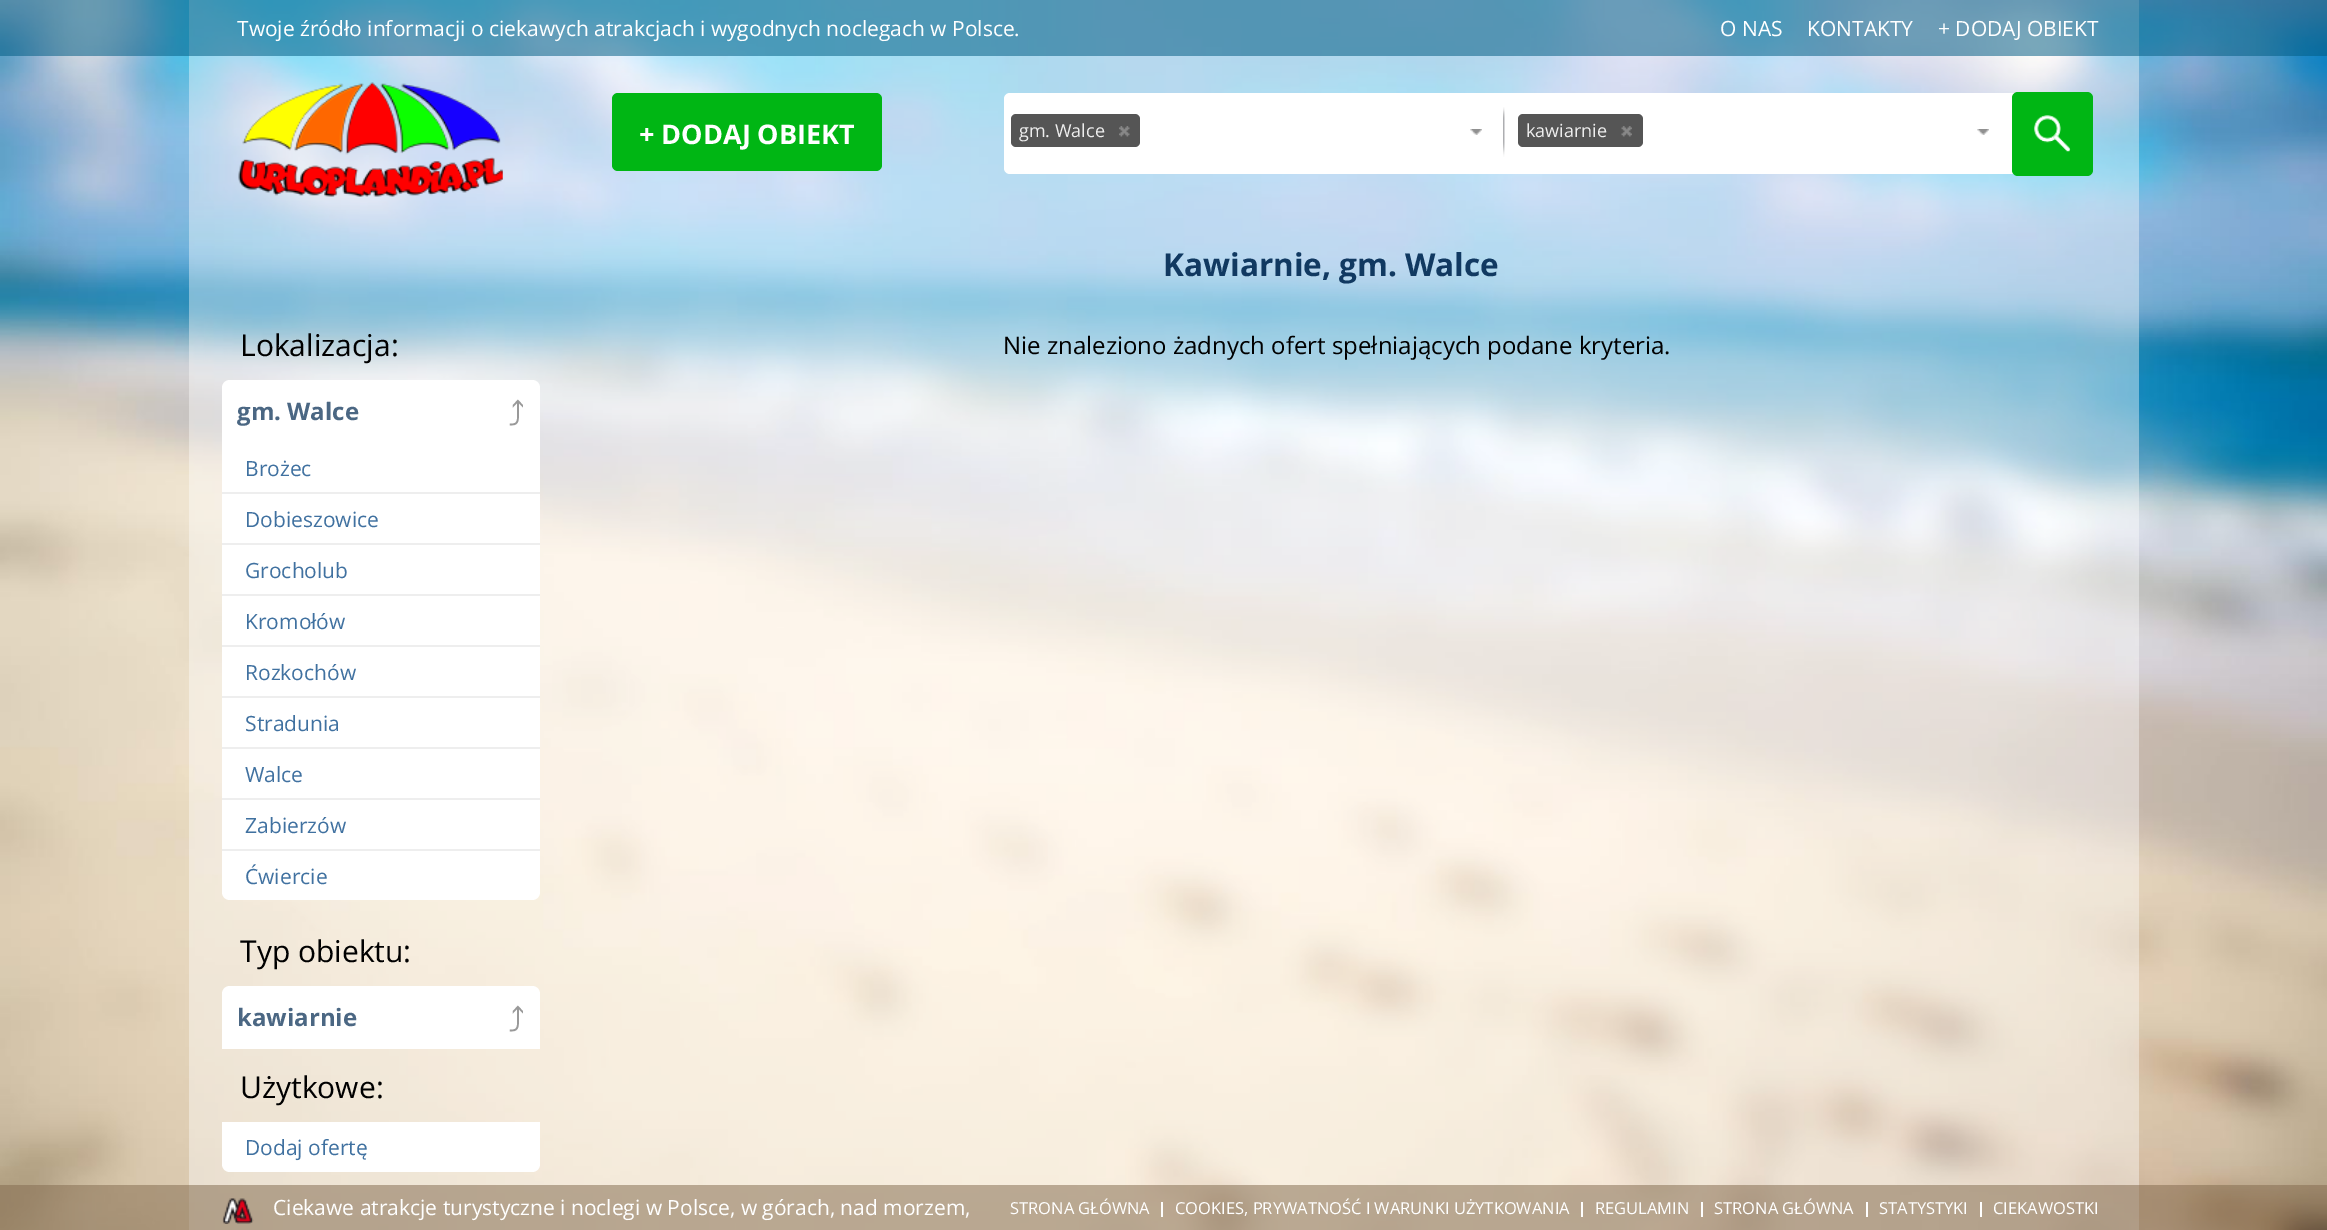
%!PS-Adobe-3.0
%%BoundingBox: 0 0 2327 1230
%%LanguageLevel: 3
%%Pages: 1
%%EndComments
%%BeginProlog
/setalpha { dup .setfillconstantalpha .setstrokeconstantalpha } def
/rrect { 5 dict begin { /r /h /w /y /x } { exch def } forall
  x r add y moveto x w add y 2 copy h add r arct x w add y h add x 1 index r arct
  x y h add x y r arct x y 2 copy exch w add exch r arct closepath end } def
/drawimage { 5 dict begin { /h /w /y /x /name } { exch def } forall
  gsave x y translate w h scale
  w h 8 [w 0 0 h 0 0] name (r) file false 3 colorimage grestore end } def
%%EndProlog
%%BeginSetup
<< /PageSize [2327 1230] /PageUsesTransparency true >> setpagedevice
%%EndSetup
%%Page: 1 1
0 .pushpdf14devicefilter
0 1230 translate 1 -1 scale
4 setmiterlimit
1 setgray
0 0 2327 1230 rectfill
(images/1.raw) 0 0 2327 1230 drawimage
0.4 setalpha
189 0 1950 1230 rectfill
0.53 setalpha
0 0.357 0.51 setrgbcolor
0 0 2327 56 rectfill
1 setalpha
(images/2.raw) 238 82 265 115 drawimage
0 0.714 0.078 setrgbcolor
612 93 270 78 6 rrect fill
1 setgray
1004 93 1087 81 6 rrect fill
0.333 setgray
1011 114 129 33 5 rrect fill
(images/3.raw) 1119 126 11 11 drawimage
(images/4.raw) 1470 129 12 6 drawimage
(images/5.raw) 1503 107 2 50 drawimage
1518 114 125 33 5 rrect fill
(images/6.raw) 1621 126 11 11 drawimage
(images/4.raw) 1977 129 12 6 drawimage
0 0.714 0.078 setrgbcolor
2012 92 81 84 6 rrect fill
(images/7.raw) 2034 115 37 37 drawimage
1 setgray
newpath 230 380 moveto 532 380 lineto 536.5 380 540 383.5 540 388 curveto 540 443 lineto 222 443 lineto 222 388 lineto 222 383.5 225.5 380 230 380 curveto closepath fill
222 443 318 49 rectfill
222 494 318 49 rectfill
0.933 setgray
222 492 318 2 rectfill
1 setgray
222 545 318 49 rectfill
0.933 setgray
222 543 318 2 rectfill
1 setgray
222 596 318 49 rectfill
0.933 setgray
222 594 318 2 rectfill
1 setgray
222 647 318 49 rectfill
0.933 setgray
222 645 318 2 rectfill
1 setgray
222 698 318 49 rectfill
0.933 setgray
222 696 318 2 rectfill
1 setgray
222 749 318 49 rectfill
0.933 setgray
222 747 318 2 rectfill
1 setgray
222 800 318 49 rectfill
0.933 setgray
222 798 318 2 rectfill
1 setgray
newpath 222 849 moveto 540 849 lineto 540 892 lineto 540 896.5 536.5 900 532 900 curveto 230 900 lineto 225.5 900 222 896.5 222 892 curveto closepath fill
0.933 setgray
222 849 318 2 rectfill
1 setgray
newpath 230 986 moveto 532 986 lineto 536.5 986 540 989.5 540 994 curveto 540 1049 lineto 222 1049 lineto 222 994 lineto 222 989.5 225.5 986 230 986 curveto closepath fill
newpath 222 1122 moveto 540 1122 lineto 540 1164 lineto 540 1168.5 536.5 1172 532 1172 curveto 230 1172 lineto 225.5 1172 222 1168.5 222 1164 curveto closepath fill
0.53 setalpha
0.514 0.42 0.31 setrgbcolor
0 1185 2327 45 rectfill
1 setalpha
(images/8.raw) 222 1198 32 26 drawimage
1 setgray
1161 1202 2 15 rectfill
1581 1202 2 15 rectfill
1701 1202 2 15 rectfill
1866 1202 2 15 rectfill
1980 1202 2 15 rectfill
/OpenSans-Regular [21 0 0 -21 0 0] selectfont
237 36 moveto (Twoje źródło informacji o ciekawych atrakcjach i wygodnych noclegach w Polsce.) show
1720 36 moveto (O NAS) show
1807 36 moveto (KONTAKTY) show
1938 36 moveto (+ DODAJ OBIEKT) show
/OpenSans-Bold [27 0 0 -27 0 0] selectfont
639 144 moveto (+ DODAJ OBIEKT) show
/OpenSans-Regular [18 0 0 -18 0 0] selectfont
0.933 setgray
1019 137 moveto (gm. Walce) show
1526 137 moveto (kawiarnie) show
/OpenSans-Bold [31.5 0 0 -31.5 0 0] selectfont
0.067 0.224 0.38 setrgbcolor
1163 276 moveto (Kawiarnie, gm. Walce) show
/OpenSans-Regular [30 0 0 -30 0 0] selectfont
0 setgray
240 356 moveto (Lokalizacja:) show
/OpenSans-Bold [24 0 0 -24 0 0] selectfont
0.294 0.404 0.514 setrgbcolor
237 420 moveto (gm. Walce) show
/IPAGothic-Regular [34 0 0 -34 0 0] selectfont
0.6 setgray
508 426 moveto (⤴) show
/OpenSans-Regular [21 0 0 -21 0 0] selectfont
0.251 0.443 0.627 setrgbcolor
245 476 moveto (Brożec) show
245 527 moveto (Dobieszowice) show
245 578 moveto (Grocholub) show
245 629 moveto (Kromołów) show
245 680 moveto (Rozkochów) show
245 731 moveto (Stradunia) show
245 782 moveto (Walce) show
245 833 moveto (Zabierzów) show
245 884 moveto (Ćwiercie) show
/OpenSans-Regular [30 0 0 -30 0 0] selectfont
0 setgray
240 962 moveto (Typ obiektu:) show
/OpenSans-Bold [24 0 0 -24 0 0] selectfont
0.294 0.404 0.514 setrgbcolor
237 1026 moveto (kawiarnie) show
/IPAGothic-Regular [34 0 0 -34 0 0] selectfont
0.6 setgray
508 1032 moveto (⤴) show
/OpenSans-Regular [30 0 0 -30 0 0] selectfont
0 setgray
240 1098 moveto (Użytkowe:) show
/OpenSans-Regular [21 0 0 -21 0 0] selectfont
0.251 0.443 0.627 setrgbcolor
245 1155 moveto (Dodaj ofertę) show
/OpenSans-Regular [24 0 0 -24 0 0] selectfont
0 setgray
1003 354 moveto (Nie znaleziono żadnych ofert spełniających podane kryteria.) show
/OpenSans-Regular [21 0 0 -21 0 0] selectfont
1 setgray
273 1215 moveto (Ciekawe atrakcje turystyczne i noclegi w Polsce, w górach, nad morzem,) show
/OpenSans-Regular [16.5 0 0 -16.5 0 0] selectfont
1010 1214 moveto (STRONA GŁÓWNA) show
1175 1214 moveto (COOKIES, PRYWATNOŚĆ I WARUNKI UŻYTKOWANIA) show
1595 1214 moveto (REGULAMIN) show
1714 1214 moveto (STRONA GŁÓWNA) show
1879 1214 moveto (STATYSTYKI) show
1993 1214 moveto (CIEKAWOSTKI) show
.poppdf14devicefilter showpage
%%EOF
